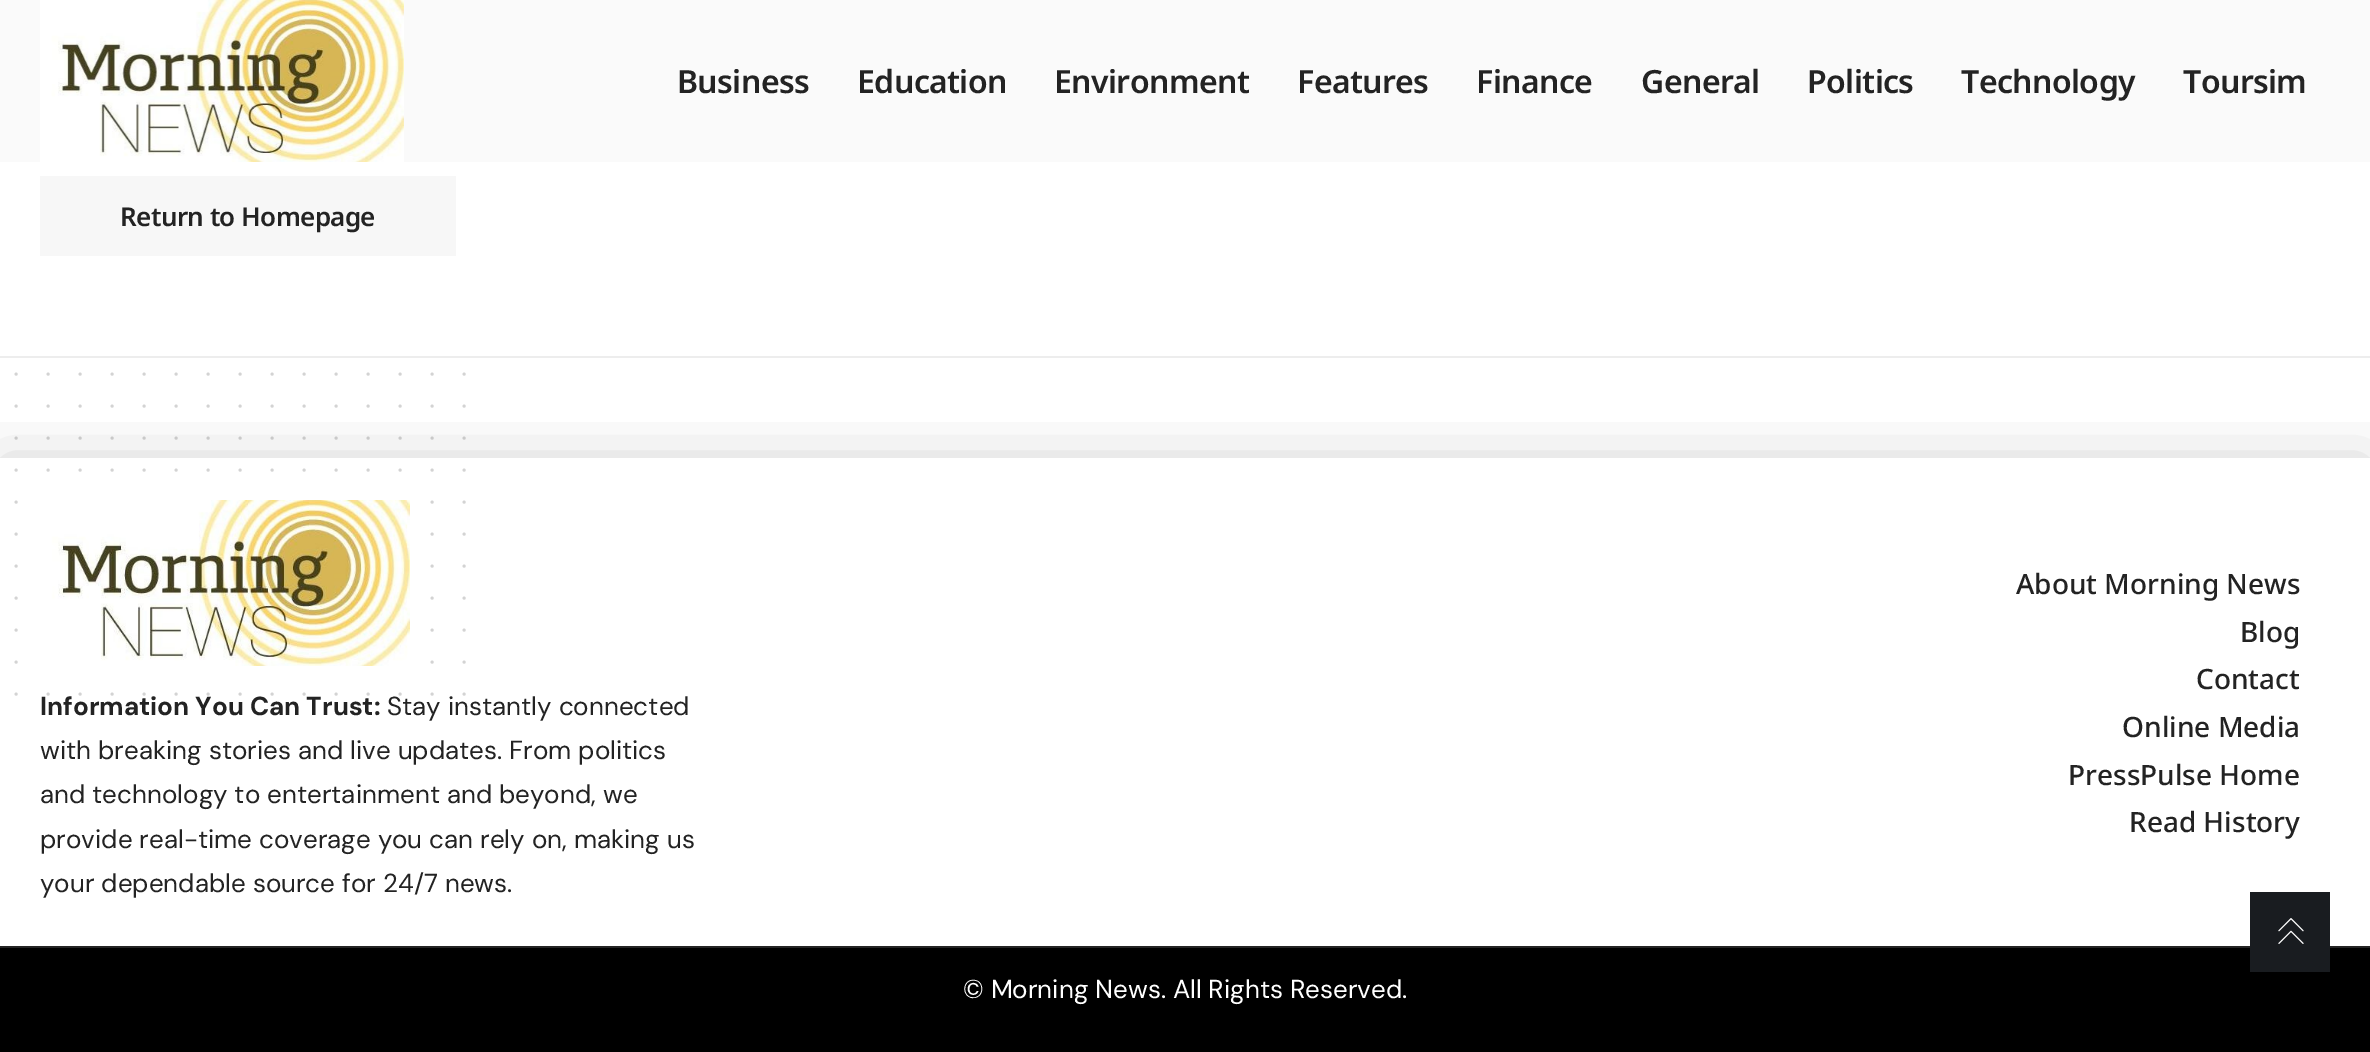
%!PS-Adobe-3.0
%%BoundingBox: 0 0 2370 1052
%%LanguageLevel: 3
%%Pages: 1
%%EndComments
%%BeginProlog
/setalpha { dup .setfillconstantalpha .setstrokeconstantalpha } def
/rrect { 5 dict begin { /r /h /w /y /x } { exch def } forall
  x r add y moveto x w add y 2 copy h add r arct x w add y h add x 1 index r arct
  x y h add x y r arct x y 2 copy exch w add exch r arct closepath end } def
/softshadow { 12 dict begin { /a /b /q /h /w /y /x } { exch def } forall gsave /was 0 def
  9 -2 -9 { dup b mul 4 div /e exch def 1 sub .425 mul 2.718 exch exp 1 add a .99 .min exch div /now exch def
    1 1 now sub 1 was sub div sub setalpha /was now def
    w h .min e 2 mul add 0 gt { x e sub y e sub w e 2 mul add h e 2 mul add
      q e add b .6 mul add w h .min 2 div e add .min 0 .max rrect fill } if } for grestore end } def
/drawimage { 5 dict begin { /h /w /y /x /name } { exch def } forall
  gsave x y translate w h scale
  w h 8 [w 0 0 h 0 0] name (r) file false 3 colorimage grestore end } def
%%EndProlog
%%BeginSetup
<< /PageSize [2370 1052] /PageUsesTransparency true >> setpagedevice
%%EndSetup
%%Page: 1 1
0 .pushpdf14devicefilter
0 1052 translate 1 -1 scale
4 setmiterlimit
1 setgray
0 0 2370 1052 rectfill
0.98 setgray
0 0 2370 162 rectfill
(images/1.raw) 40 0 364 162 drawimage
0.969 setgray
40 176 416 80 rectfill
0.929 setgray
0 356 2370 2 rectfill
0.827 setgray
3 setlinewidth
1 setlinecap
[0 32] 0 setdash
newpath 16 374 moveto 464.4 374 lineto stroke
newpath 16 406 moveto 464.4 406 lineto stroke
newpath 16 438 moveto 464.4 438 lineto stroke
newpath 16 470 moveto 464.4 470 lineto stroke
newpath 16 502 moveto 464.4 502 lineto stroke
newpath 16 534 moveto 464.4 534 lineto stroke
newpath 16 566 moveto 464.4 566 lineto stroke
newpath 16 598 moveto 464.4 598 lineto stroke
newpath 16 630 moveto 464.4 630 lineto stroke
newpath 16 662 moveto 464.4 662 lineto stroke
newpath 16 694 moveto 464.4 694 lineto stroke
gsave
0 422 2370 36 rectclip
0 setgray
0 458 2370 488 0 31 0.16 softshadow
grestore
(images/2.raw) 46 500 364 166 drawimage
0 setgray
0 948 2370 104 rectfill
0.141 setgray
0 946 2370 2 rectfill
0.098 0.11 0.125 setrgbcolor
2250 892 80 80 rectfill
(images/3.raw) 2278 918 26 26 drawimage
/NotoSans-SemiBold [32 0 0 -32 0 0] selectfont
0.137 setgray
677 93 moveto -0.6 0 (Business) ashow
857 93 moveto -0.6 0 (Education) ashow
1054 93 moveto -0.6 0 (Environment) ashow
1297 93 moveto -0.6 0 (Features) ashow
1476 93 moveto -0.6 0 (Finance) ashow
1641 93 moveto -0.6 0 (General) ashow
1807 93 moveto -0.6 0 (Politics) ashow
1961 93 moveto -0.6 0 (Technology) ashow
2183 93 moveto -0.6 0 (Toursim) ashow
/NotoSans-SemiBold [26 0 0 -26 0 0] selectfont
120 226 moveto -0.6 0 (Return to Homepage) ashow
/DMSans-Bold [26 0 0 -26 0 0] selectfont
40 715 moveto (Information You Can Trust:) show
/DMSans-Regular [26 0 0 -26 0 0] selectfont
387 715 moveto (Stay instantly connected) show
40 759 moveto (with breaking stories and live updates. From politics) show
40 803 moveto (and technology to entertainment and beyond, we) show
40 848 moveto (provide real-time coverage you can rely on, making us) show
40 892 moveto (your dependable source for 24/7 news.) show
/NotoSans-Medium [28 0 0 -28 0 0] selectfont
2016 594 moveto (About Morning News) show
2240 642 moveto (Blog) show
2196 689 moveto (Contact) show
2122 737 moveto (Online Media) show
2068 785 moveto (PressPulse Home) show
2129 832 moveto (Read History) show
/DMSans-Regular [26 0 0 -26 0 0] selectfont
1 setgray
963 998 moveto (© Morning News. All Rights Reserved.) show
.poppdf14devicefilter showpage
%%EOF
